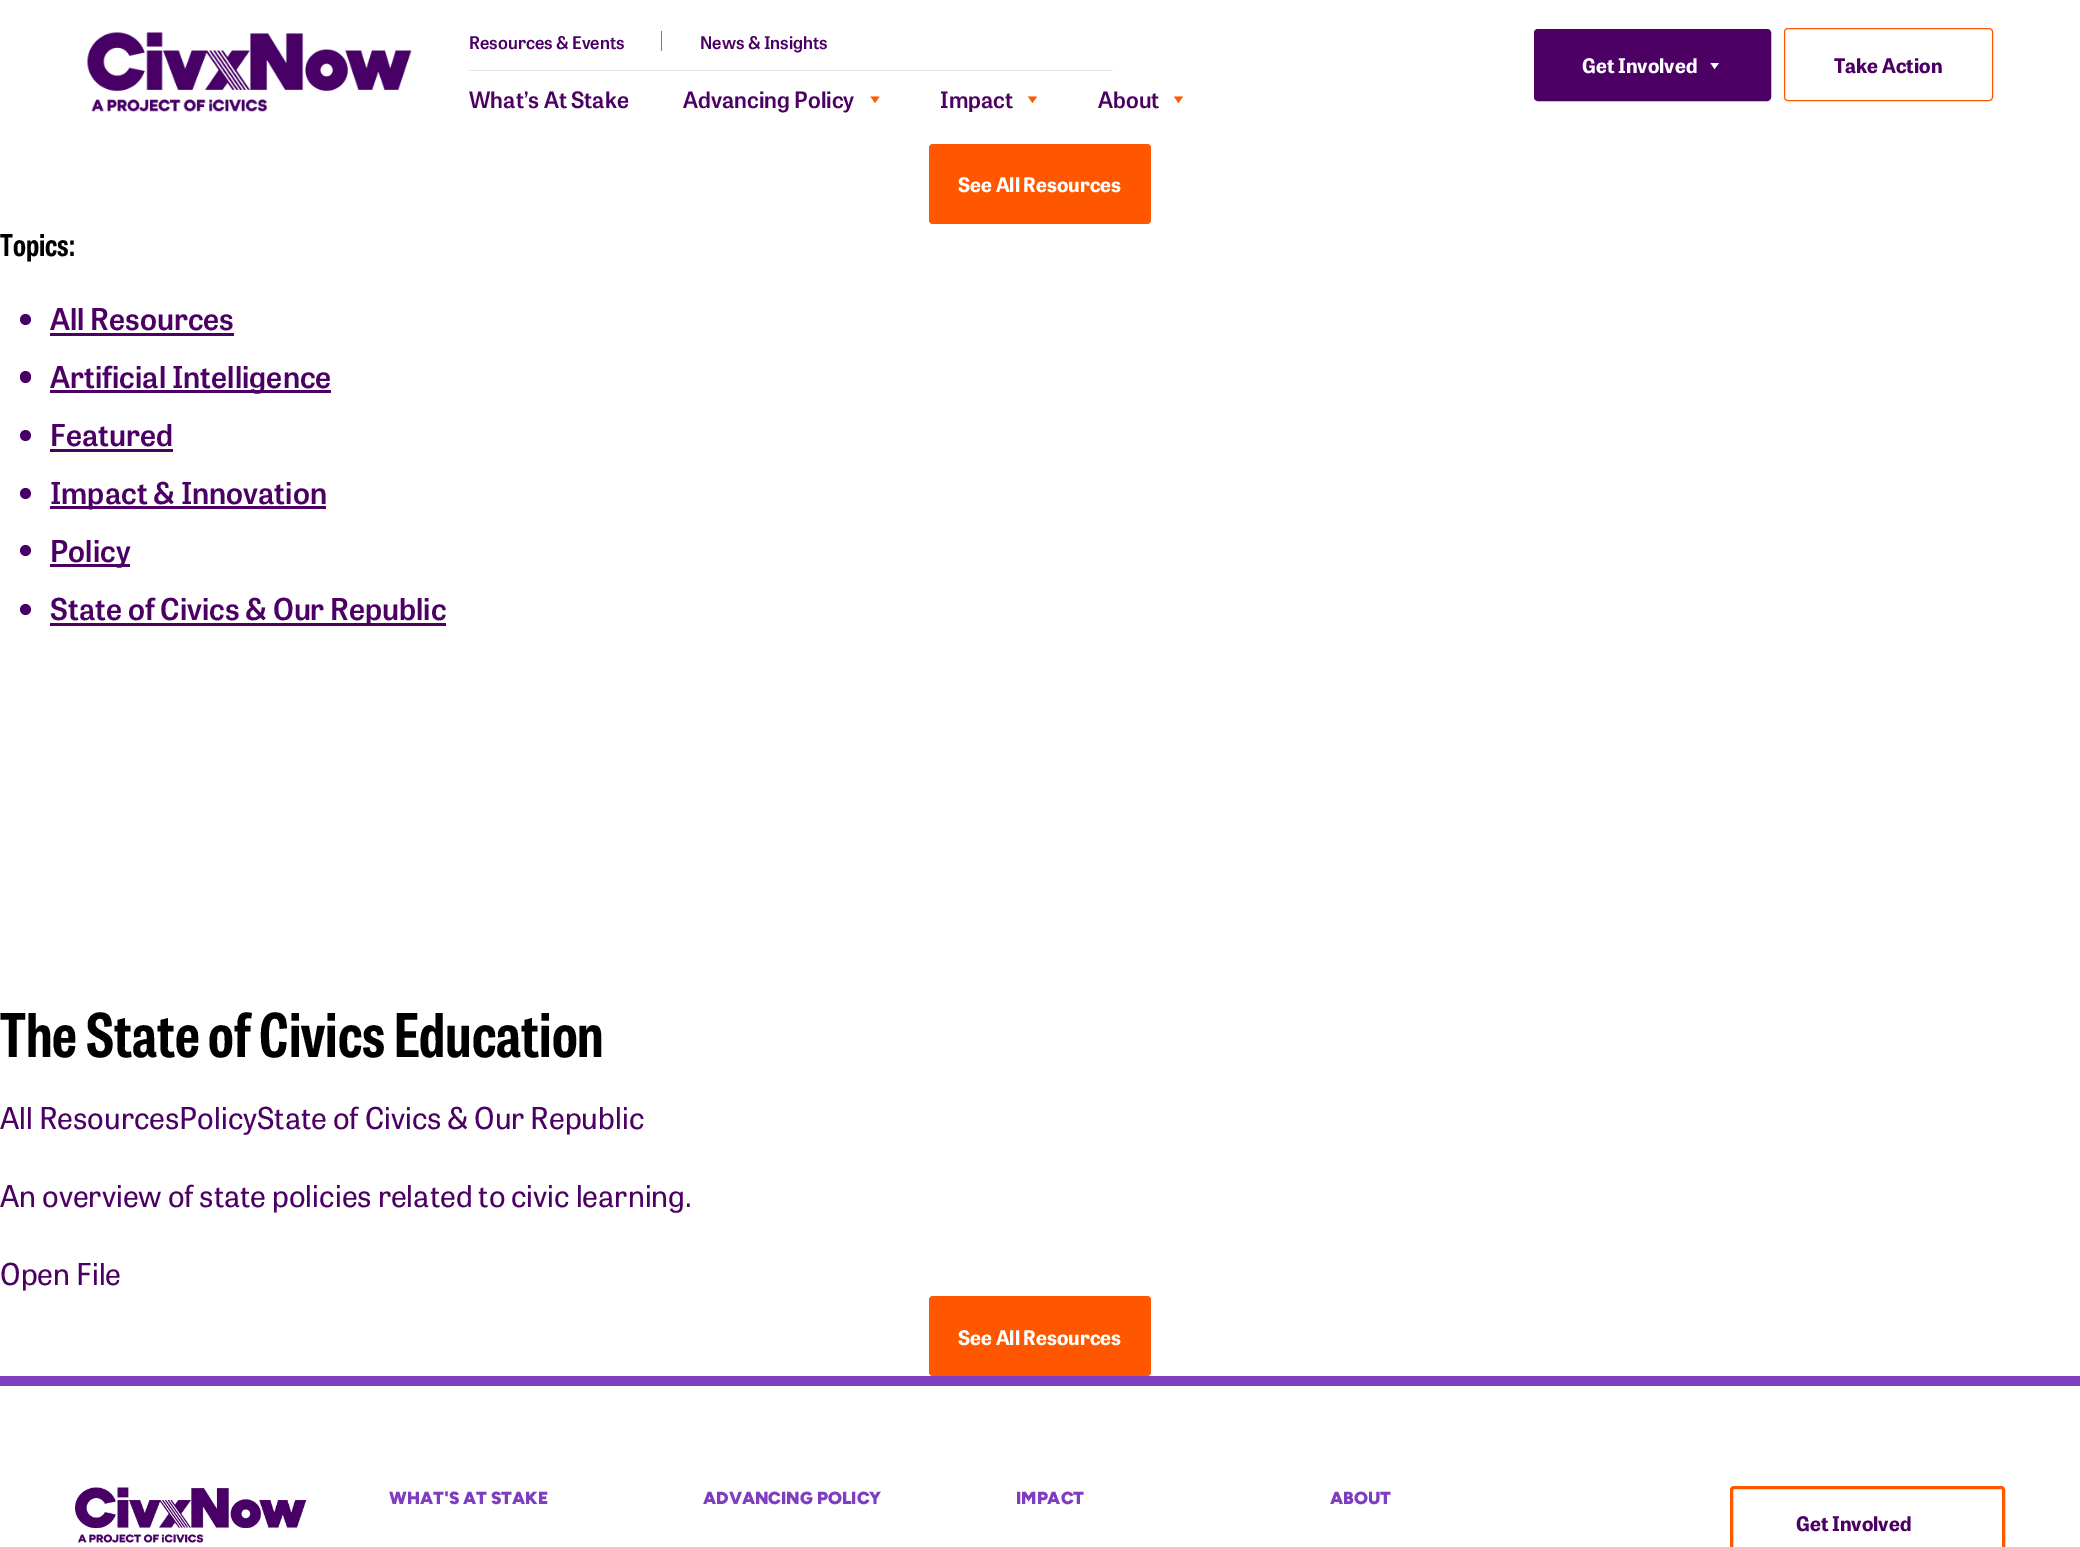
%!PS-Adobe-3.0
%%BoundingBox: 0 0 2080 1547
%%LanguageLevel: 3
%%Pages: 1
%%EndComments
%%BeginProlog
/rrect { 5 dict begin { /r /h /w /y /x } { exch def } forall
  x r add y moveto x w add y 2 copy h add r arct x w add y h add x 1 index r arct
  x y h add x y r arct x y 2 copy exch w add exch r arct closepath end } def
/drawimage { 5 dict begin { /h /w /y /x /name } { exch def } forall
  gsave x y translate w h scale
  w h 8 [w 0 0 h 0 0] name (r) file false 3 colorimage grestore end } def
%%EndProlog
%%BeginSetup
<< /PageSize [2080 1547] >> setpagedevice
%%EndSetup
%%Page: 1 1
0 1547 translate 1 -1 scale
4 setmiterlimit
1 setgray
0 0 2080 1547 rectfill
(images/1.raw) 87 32 325 80 drawimage
0.478 setgray
661 31 1 20 rectfill
0.918 0.882 0.945 setrgbcolor
469 70 644 1 rectfill
0.298 0 0.392 setrgbcolor
1536 31 233 68 2 rrect gsave fill grestore
4 setlinewidth
stroke
1 setgray
newpath 1719 63 moveto 1714.5 69 lineto 1710.5 63 lineto closepath fill
1 0.349 0 setrgbcolor
1 setlinewidth
1784.5 28.5 208 72 3.5 rrect stroke
newpath 879.5 96.5 moveto 875 103 lineto 870.5 96.5 lineto closepath fill
newpath 1037 96.5 moveto 1032.5 103 lineto 1028 96.5 lineto closepath fill
newpath 1183 96.5 moveto 1178.5 103 lineto 1174 96.5 lineto closepath fill
1 0.341 0 setrgbcolor
929 144 222 80 4 rrect fill
0.282 0 0.4 setrgbcolor
newpath 25.5 319.5 5.5 0 360 arc closepath fill
0.298 0 0.392 setrgbcolor
50 333 184 3 rectfill
0.282 0 0.4 setrgbcolor
20 371 11 12 5.5 rrect fill
0.298 0 0.392 setrgbcolor
50 390 281 3 rectfill
0.282 0 0.4 setrgbcolor
newpath 25.5 435.5 5.5 0 360 arc closepath fill
0.298 0 0.392 setrgbcolor
50 449 123 3 rectfill
0.282 0 0.4 setrgbcolor
newpath 25.5 493.5 5.5 0 360 arc closepath fill
0.298 0 0.392 setrgbcolor
50 506 276 3 rectfill
0.282 0 0.4 setrgbcolor
newpath 25.5 550.5 5.5 0 360 arc closepath fill
0.298 0 0.392 setrgbcolor
50 564 80 3 rectfill
0.282 0 0.4 setrgbcolor
newpath 25.5 609.5 5.5 0 360 arc closepath fill
0.298 0 0.392 setrgbcolor
50 623 396 3 rectfill
1 0.341 0 setrgbcolor
929 1296 222 80 4 rrect fill
0.498 0.243 0.749 setrgbcolor
0 1376 2080 10 rectfill
(images/2.raw) 75 1487 232 56 drawimage
1 0.349 0 setrgbcolor
3 setlinewidth
1731.5 1487.5 272 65 2.5 rrect stroke
/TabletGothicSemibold-SemiBold [17.5 0 0 -17.5 0 0] selectfont
0.298 0 0.392 setrgbcolor
469 49 moveto (Resources & Events) show
700 49 moveto (News & Insights) show
/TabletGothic-Bold [20 0 0 -20 0 0] selectfont
1 setgray
1582 73 moveto (Get Involved) show
0.298 0 0.392 setrgbcolor
1834 73 moveto (Take Action) show
/TabletGothicSemibold-SemiBold [22.5 0 0 -22.5 0 0] selectfont
469 108 moveto (What’s At Stake) show
683 108 moveto (Advancing Policy) show
940 108 moveto (Impact) show
1098 108 moveto (About) show
/TabletGothic-Bold [20 0 0 -20 0 0] selectfont
1 setgray
958 192 moveto (See All Resources) show
/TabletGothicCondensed-Bold [30 0 0 -30 0 0] selectfont
0 setgray
0 256 moveto (Topics:) show
/TabletGothicSemibold-SemiBold [30 0 0 -30 0 0] selectfont
0.298 0 0.392 setrgbcolor
50 330 moveto (All Resources) show
50 388 moveto (Artificial Intelligence) show
50 446 moveto (Featured) show
50 504 moveto (Impact & Innovation) show
50 562 moveto (Policy) show
50 620 moveto (State of Civics & Our Republic) show
/TabletGothicCondensed-Bold [60 0 0 -60 0 0] selectfont
0 setgray
0 1057 moveto (The State of Civics Education) show
/TabletGothic-Regular [30 0 0 -30 0 0] selectfont
0.298 0 0.392 setrgbcolor
0 1129 moveto (All ResourcesPolicyState of Civics & Our Republic) show
0 1207 moveto (An overview of state policies related to civic learning.) show
0 1285 moveto (Open File) show
/TabletGothic-Bold [20 0 0 -20 0 0] selectfont
1 setgray
958 1345 moveto (See All Resources) show
/Figtree-Black [17.5 0 0 -17.5 0 0] selectfont
0.498 0.243 0.749 setrgbcolor
389 1504 moveto (WHAT'S AT STAKE) show
703 1504 moveto (ADVANCING POLICY) show
1016 1504 moveto (IMPACT) show
1330 1504 moveto (ABOUT) show
/TabletGothic-Bold [20 0 0 -20 0 0] selectfont
0.298 0 0.392 setrgbcolor
1796 1531 moveto (Get Involved) show
showpage
%%EOF
